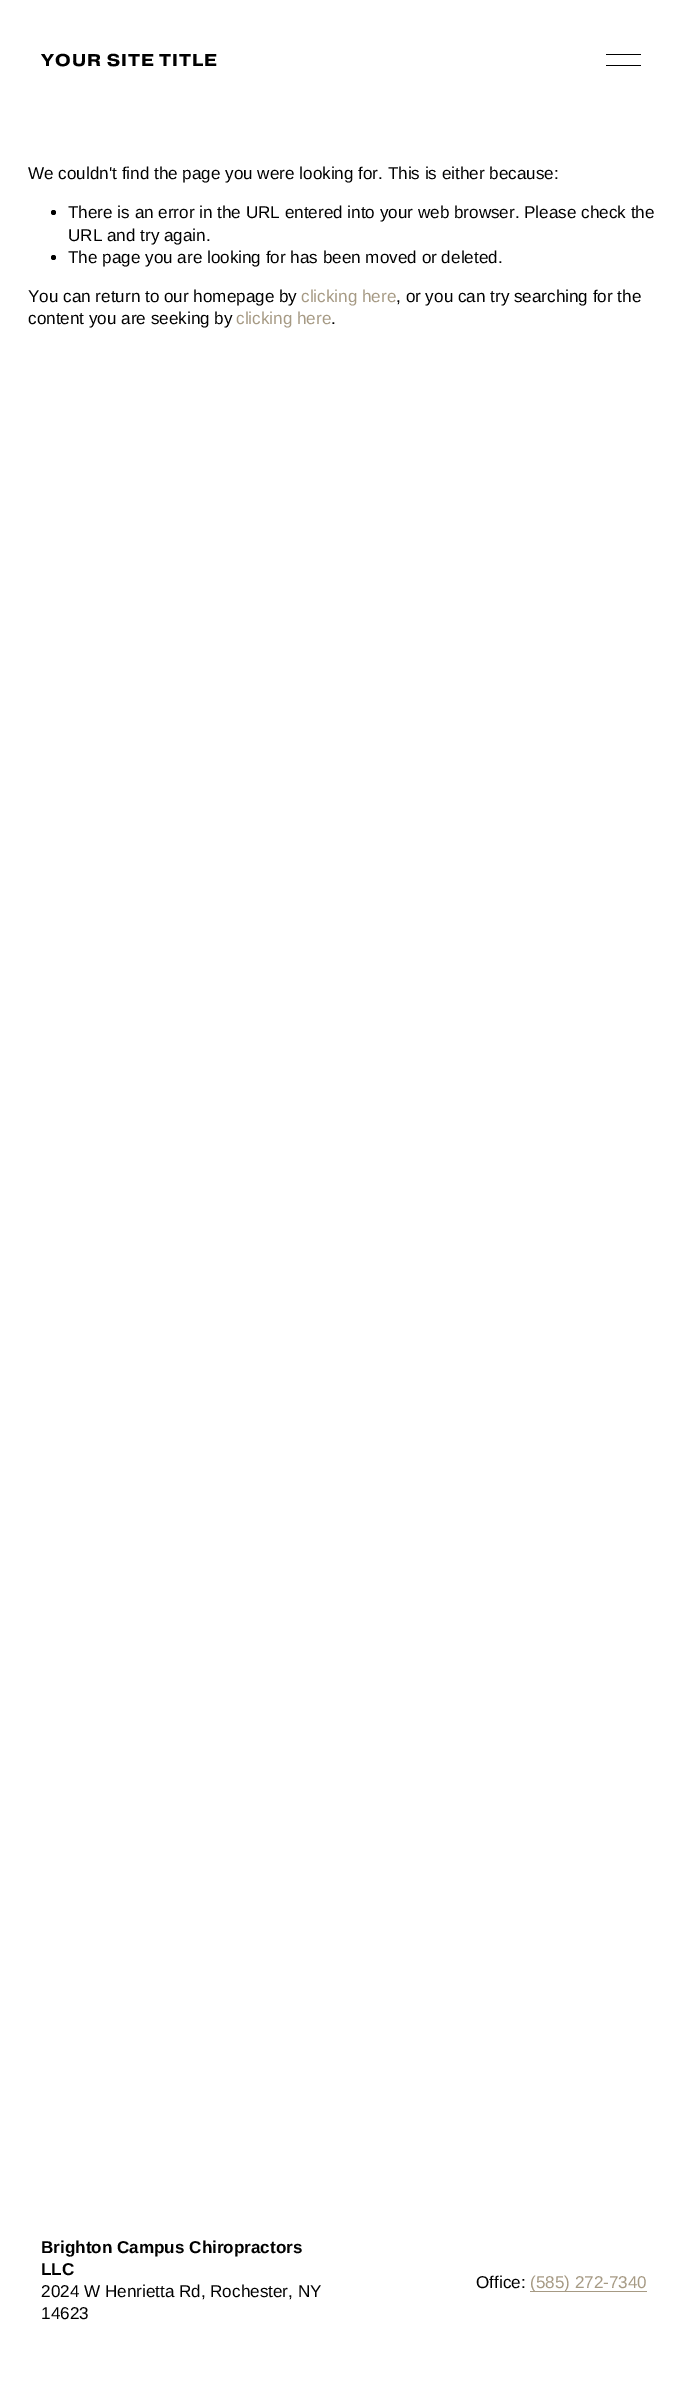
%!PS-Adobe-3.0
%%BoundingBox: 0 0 688 2400
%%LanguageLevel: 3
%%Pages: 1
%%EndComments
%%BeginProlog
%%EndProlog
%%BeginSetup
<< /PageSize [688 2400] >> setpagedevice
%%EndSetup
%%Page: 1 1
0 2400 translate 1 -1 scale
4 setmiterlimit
1 setgray
0 0 688 2400 rectfill
0 setgray
606 54 35 1 rectfill
606 65 35 1 rectfill
newpath 53.5 212.5 2.5 0 360 arc closepath fill
newpath 53.5 257.5 2.5 0 360 arc closepath fill
0.651 0.604 0.518 setrgbcolor
530 2291 117 1 rectfill
/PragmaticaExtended-Bold [17.1 0 0 -17.1 0 0] selectfont
0 setgray
41 66 moveto 1 0 (YOUR SITE TITLE) ashow
/LiberationSans-Regular [17.1 0 0 -17.1 0 0] selectfont
28 179 moveto (We couldn't find the page you were looking for. This is either because:) show
68 218 moveto (There is an error in the URL entered into your web browser. Please check the) show
68 241 moveto (URL and try again.) show
68 263 moveto (The page you are looking for has been moved or deleted.) show
28 302 moveto (You can return to our homepage by) show
0.651 0.604 0.518 setrgbcolor
301 302 moveto (clicking here) show
0 setgray
396 302 moveto (, or you can try searching for the) show
28 324 moveto (content you are seeking by) show
0.651 0.604 0.518 setrgbcolor
236 324 moveto (clicking here) show
0 setgray
331 324 moveto (.) show
/LiberationSans-Bold [17.1 0 0 -17.1 0 0] selectfont
41 2253 moveto (Brighton Campus Chiropractors) show
41 2275 moveto (LLC) show
/LiberationSans-Regular [17.1 0 0 -17.1 0 0] selectfont
41 2297 moveto (2024 W Henrietta Rd, Rochester, NY) show
41 2319 moveto (14623) show
476 2288 moveto (Office:) show
0.651 0.604 0.518 setrgbcolor
530 2288 moveto (\(585\) 272-7340) show
showpage
%%EOF
